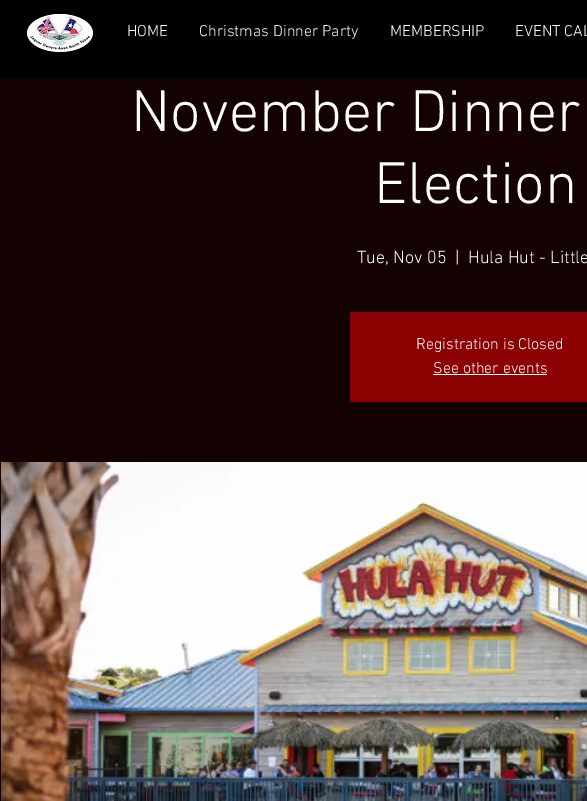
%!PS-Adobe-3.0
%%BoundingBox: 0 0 587 801
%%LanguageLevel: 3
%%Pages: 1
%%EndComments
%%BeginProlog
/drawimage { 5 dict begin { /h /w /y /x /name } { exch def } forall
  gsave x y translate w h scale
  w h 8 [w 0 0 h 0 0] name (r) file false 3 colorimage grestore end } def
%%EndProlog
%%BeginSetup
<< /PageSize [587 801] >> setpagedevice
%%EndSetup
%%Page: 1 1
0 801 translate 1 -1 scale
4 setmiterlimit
0 setgray
0 0 587 801 rectfill
1 setgray
newpath 60 14 moveto 78 14 93 22.5 93 33 curveto 93 43.5 78 52 60 52 curveto 42 52 27 43.5 27 33 curveto 27 22.5 42 14 60 14 curveto closepath fill
(images/1.raw) 27 14 66 38 drawimage
0.078 0.004 0.008 setrgbcolor
0 79 587 659 rectfill
0.545 0 0 setrgbcolor
350 312 237 90 rectfill
1 setgray
433 374 114 1 rectfill
(images/2.raw) 1 462 586 339 drawimage
/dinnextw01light-Light [16 0 0 -16 0 0] selectfont
127 36 moveto (HOME) show
199 36 moveto (Christmas Dinner Party) show
390 36 moveto (MEMBERSHIP) show
515 36 moveto (EVENT CAL) show
/dinnextw01light-Light [60 0 0 -60 0 0] selectfont
131 131 moveto (November Dinner) show
374 203 moveto (Election) show
/dinnextw01light-Light [18 0 0 -18 0 0] selectfont
357 263 moveto (Tue, Nov 05) show
455 263 moveto (|) show
468 263 moveto (Hula Hut - Little) show
/dinnextw01light-Light [16 0 0 -16 0 0] selectfont
416 349 moveto (Registration is Closed) show
433 373 moveto (See other events) show
showpage
%%EOF
